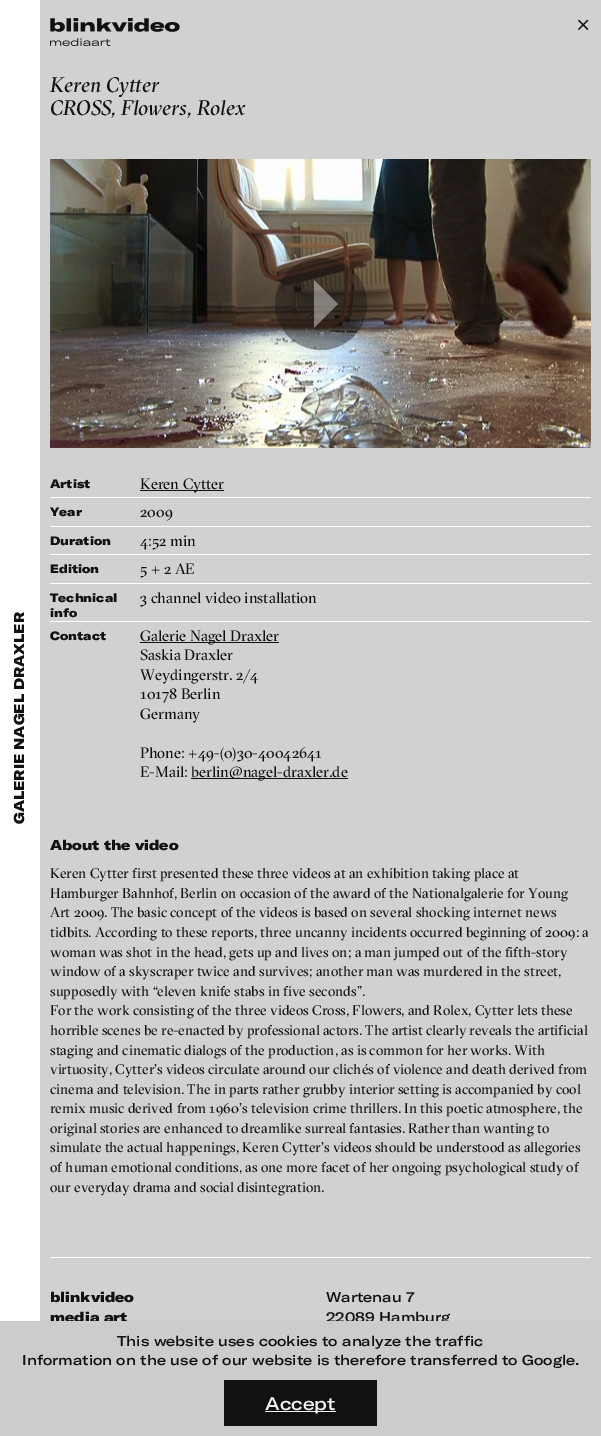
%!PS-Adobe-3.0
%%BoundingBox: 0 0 601 1436
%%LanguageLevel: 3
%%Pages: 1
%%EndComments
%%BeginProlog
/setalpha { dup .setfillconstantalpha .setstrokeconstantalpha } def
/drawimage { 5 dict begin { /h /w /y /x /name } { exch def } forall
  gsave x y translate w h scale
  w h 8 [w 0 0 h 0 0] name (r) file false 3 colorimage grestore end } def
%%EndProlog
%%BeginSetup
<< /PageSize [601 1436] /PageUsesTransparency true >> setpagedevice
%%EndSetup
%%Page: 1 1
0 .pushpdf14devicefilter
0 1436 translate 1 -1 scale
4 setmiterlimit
1 setgray
0 0 601 1436 rectfill
0.82 setgray
40 0 561 1321 rectfill
(images/1.raw) 577 19 12 11 drawimage
(images/2.raw) 50 18 130 28 drawimage
(images/3.raw) 50 159 541 289 drawimage
0.4 setalpha
0.067 setgray
newpath 321 304 46 0 360 arc closepath fill
1 setgray
newpath 314 328 moveto 338 304 lineto 314 280 lineto closepath fill
1 setalpha
50 497 541 1 rectfill
0.067 setgray
140 490 84 1 rectfill
1 setgray
50 526 541 1 rectfill
50 554 541 1 rectfill
50 583 541 1 rectfill
50 621 541 1 rectfill
0.067 setgray
140 642 139 1 rectfill
191 778 157 1 rectfill
1 setgray
50 1257 541 1 rectfill
/GTAmerica-Black [14 0 0 -14 0 0] selectfont
0.067 setgray
gsave 24 824 translate -90 rotate 0 0 moveto (GALERIE NAGEL DRAXLER) show grestore
/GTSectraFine-Italic [21 0 0 -21 0 0] selectfont
50 92 moveto (Keren Cytter) show
50 115 moveto (CROSS, Flowers, Rolex) show
/GTAmerica-Black [12 0 0 -12 0 0] selectfont
50 488 moveto (Artist) show
/GTSectraFine-Regular [15 0 0 -15 0 0] selectfont
140 489 moveto (Keren Cytter) show
/GTAmerica-Black [12 0 0 -12 0 0] selectfont
50 516 moveto (Year) show
/GTSectraFine-Regular [15 0 0 -15 0 0] selectfont
140 517 moveto (2009) show
/GTAmerica-Black [12 0 0 -12 0 0] selectfont
50 545 moveto (Duration) show
/GTSectraFine-Regular [15 0 0 -15 0 0] selectfont
140 546 moveto (4:52 min) show
/GTAmerica-Black [12 0 0 -12 0 0] selectfont
50 573 moveto (Edition) show
/GTSectraFine-Regular [15 0 0 -15 0 0] selectfont
140 574 moveto (5 + 2 AE) show
/GTAmerica-Black [12 0 0 -12 0 0] selectfont
50 602 moveto (Technical) show
50 617 moveto (info) show
/GTSectraFine-Regular [15 0 0 -15 0 0] selectfont
140 603 moveto (3 channel video installation) show
/GTAmerica-Black [12 0 0 -12 0 0] selectfont
50 640 moveto (Contact) show
/GTSectraFine-Regular [15 0 0 -15 0 0] selectfont
140 641 moveto (Galerie Nagel Draxler) show
140 660 moveto (Saskia Draxler) show
140 680 moveto (Weydingerstr. 2/4) show
140 699 moveto (10178 Berlin) show
140 719 moveto (Germany) show
140 758 moveto (Phone: +49-\(0\)30-40042641) show
140 777 moveto (E-Mail:) show
191 777 moveto (berlin@nagel-draxler.de) show
/GTAmerica-Black [14 0 0 -14 0 0] selectfont
50 850 moveto (About the video) show
/GTSectraFine-Regular [14 0 0 -14 0 0] selectfont
50 878 moveto (Keren Cytter first presented these three videos at an exhibition taking place at) show
50 898 moveto (Hamburger Bahnhof, Berlin on occasion of the award of the Nationalgalerie for Young) show
50 917 moveto (Art 2009. The basic concept of the videos is based on several shocking internet news) show
50 937 moveto (tidbits. According to these reports, three uncanny incidents occurred beginning of 2009: a) show
50 957 moveto (woman was shot in the head, gets up and lives on; a man jumped out of the fifth-story) show
50 976 moveto (window of a skyscraper twice and survives; another man was murdered in the street,) show
50 996 moveto (supposedly with “eleven knife stabs in five seconds”.) show
50 1015 moveto (For the work consisting of the three videos Cross, Flowers, and Rolex, Cytter lets these) show
50 1035 moveto (horrible scenes be re-enacted by professional actors. The artist clearly reveals the artificial) show
50 1055 moveto (staging and cinematic dialogs of the production, as is common for her works. With) show
50 1074 moveto (virtuosity, Cytter’s videos circulate around our clichés of violence and death derived from) show
50 1094 moveto (cinema and television. The in parts rather grubby interior setting is accompanied by cool) show
50 1113 moveto (remix music derived from 1960’s television crime thrillers. In this poetic atmosphere, the) show
50 1133 moveto (original stories are enhanced to dreamlike surreal fantasies. Rather than wanting to) show
50 1152 moveto (simulate the actual happenings, Keren Cytter’s videos should be understood as allegories) show
50 1172 moveto (of human emotional conditions, as one more facet of her ongoing psychological study of) show
50 1192 moveto (our everyday drama and social disintegration.) show
/GTAmerica-Black [14 0 0 -14 0 0] selectfont
50 1302 moveto (blinkvideo) show
50 1322 moveto (media art) show
/GTAmerica-Medium [14 0 0 -14 0 0] selectfont
326 1302 moveto (Wartenau 7) show
326 1322 moveto (22089 Hamburg) show
0.8 setgray
0 1321 601 115 rectfill
0.067 setgray
117 1346 moveto (This website uses cookies to analyze the traffic) show
22 1365 moveto (Information on the use of our website is therefore transferred to Google.) show
224 1380 153 46 rectfill
0.945 setgray
265 1411 71 1 rectfill
/GTAmerica-Medium [18 0 0 -18 0 0] selectfont
265 1410 moveto (Accept) show
.poppdf14devicefilter showpage
%%EOF
